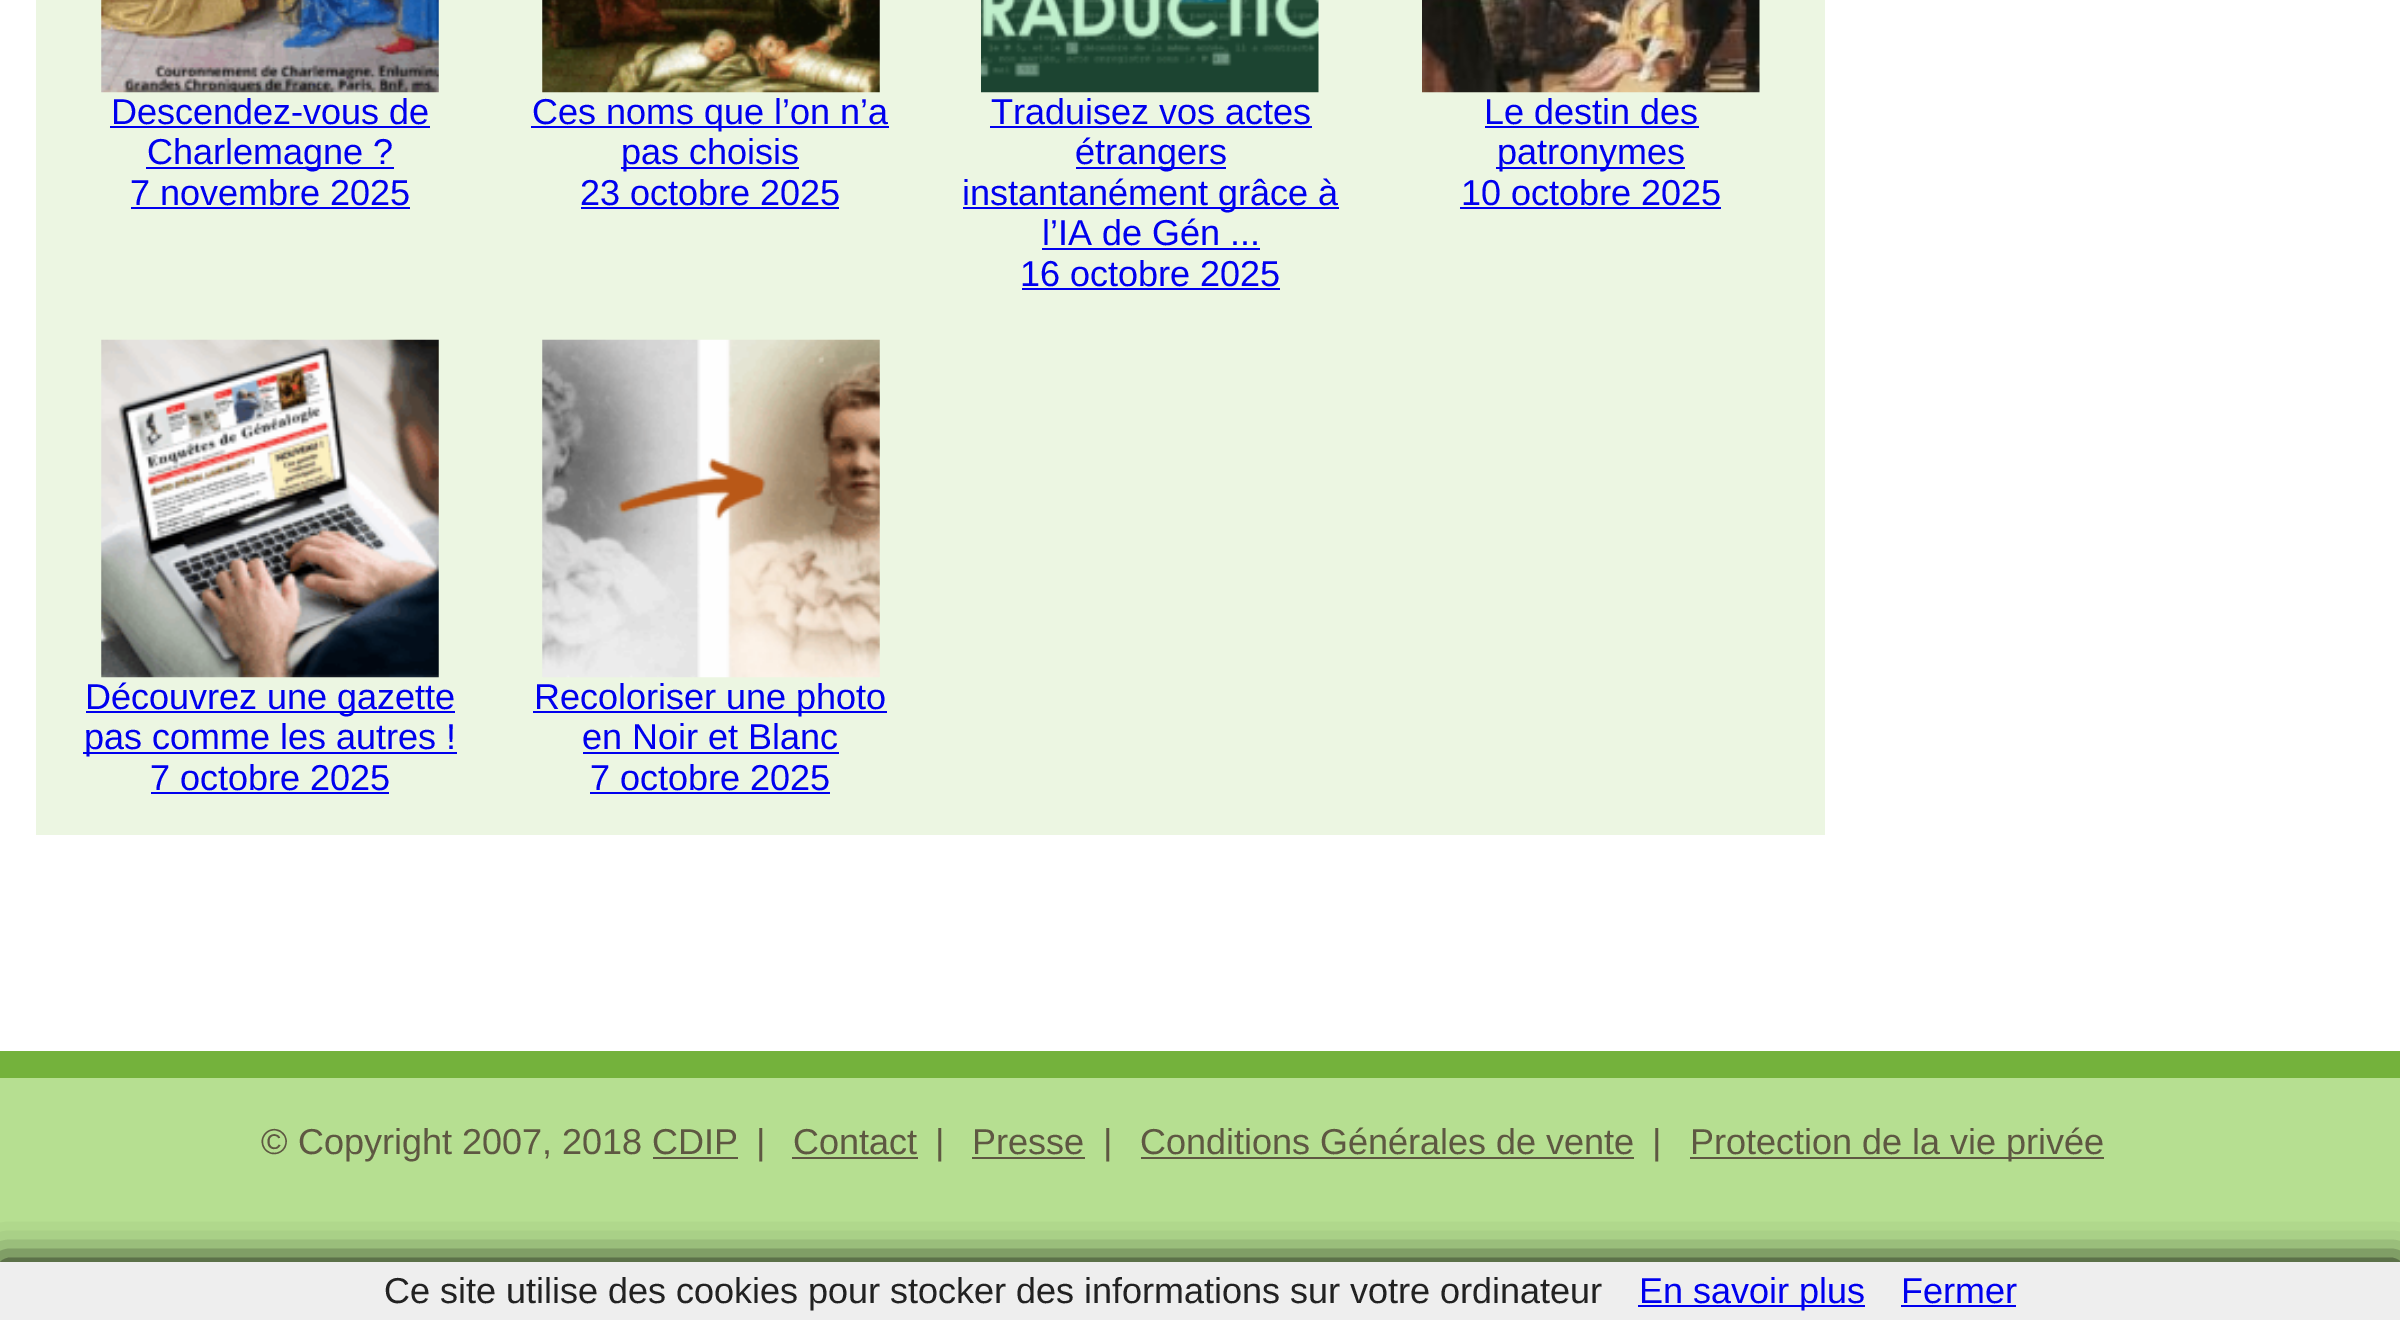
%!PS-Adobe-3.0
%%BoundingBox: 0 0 2400 1320
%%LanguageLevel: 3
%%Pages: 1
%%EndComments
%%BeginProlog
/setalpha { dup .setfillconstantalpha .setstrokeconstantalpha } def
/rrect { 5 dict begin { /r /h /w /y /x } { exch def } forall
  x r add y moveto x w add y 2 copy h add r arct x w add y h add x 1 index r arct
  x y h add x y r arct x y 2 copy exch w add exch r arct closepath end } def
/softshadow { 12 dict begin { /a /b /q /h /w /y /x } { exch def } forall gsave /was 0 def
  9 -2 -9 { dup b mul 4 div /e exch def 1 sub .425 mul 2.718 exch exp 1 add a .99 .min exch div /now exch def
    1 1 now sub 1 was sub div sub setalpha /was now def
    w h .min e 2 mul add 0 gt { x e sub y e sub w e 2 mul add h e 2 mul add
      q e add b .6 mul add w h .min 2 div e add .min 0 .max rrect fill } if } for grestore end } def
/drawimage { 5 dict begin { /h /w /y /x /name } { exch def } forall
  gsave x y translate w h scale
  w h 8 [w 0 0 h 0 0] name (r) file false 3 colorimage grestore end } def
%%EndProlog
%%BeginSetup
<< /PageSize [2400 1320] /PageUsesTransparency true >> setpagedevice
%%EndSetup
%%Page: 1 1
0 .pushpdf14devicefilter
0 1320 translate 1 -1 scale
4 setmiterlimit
1 setgray
0 0 2400 1320 rectfill
0.925 0.965 0.886 setrgbcolor
36 0 1789 835 rectfill
(images/1.raw) 101 0 338 93 drawimage
0 0 0.933 setrgbcolor
110 126 320 2 rectfill
146 167 248 2 rectfill
131 207 279 2 rectfill
(images/2.raw) 542 0 338 93 drawimage
531 126 358 2 rectfill
621 167 178 2 rectfill
581 207 258 2 rectfill
(images/3.raw) 981 0 338 93 drawimage
990 126 322 2 rectfill
1076 167 150 2 rectfill
963 207 376 2 rectfill
1042 248 218 2 rectfill
1022 288 258 2 rectfill
(images/4.raw) 1422 0 338 93 drawimage
1485 126 214 2 rectfill
1496 167 189 2 rectfill
1460 207 261 2 rectfill
(images/5.raw) 101 339 338 339 drawimage
86 711 369 2 rectfill
83 752 374 2 rectfill
151 792 238 2 rectfill
(images/6.raw) 542 339 338 339 drawimage
533 711 354 2 rectfill
583 752 256 2 rectfill
590 792 240 2 rectfill
0.714 0.875 0.569 setrgbcolor
0 1078 2400 184 rectfill
0.455 0.698 0.235 setrgbcolor
0 1051 2400 27 rectfill
0.369 0.345 0.259 setrgbcolor
653 1157 85 2 rectfill
792 1157 126 2 rectfill
972 1157 113 2 rectfill
1141 1157 493 2 rectfill
1690 1157 414 2 rectfill
0 setgray
0 1262 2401 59 0 18 1 softshadow
0.933 setgray
0 1262 2400 58 rectfill
0 0 0.933 setrgbcolor
1638 1305 227 2 rectfill
1901 1305 115 2 rectfill
/LiberationSans-Regular [36 0 0 -36 0 0] selectfont
111 124 moveto (Descendez-vous de) show
147 164 moveto (Charlemagne ?) show
130 205 moveto (7 novembre 2025) show
532 124 moveto (Ces noms que l’on n’a) show
621 164 moveto (pas choisis) show
580 205 moveto (23 octobre 2025) show
991 124 moveto (Traduisez vos actes) show
1075 164 moveto (étrangers) show
962 205 moveto (instantanément grâce à) show
1042 245 moveto (l’IA de Gén ...) show
1020 286 moveto (16 octobre 2025) show
1484 124 moveto (Le destin des) show
1497 164 moveto (patronymes) show
1461 205 moveto (10 octobre 2025) show
85 709 moveto (Découvrez une gazette) show
84 749 moveto (pas comme les autres !) show
150 790 moveto (7 octobre 2025) show
534 709 moveto (Recoloriser une photo) show
582 749 moveto (en Noir et Blanc) show
590 790 moveto (7 octobre 2025) show
0.369 0.345 0.259 setrgbcolor
261 1154 moveto (© Copyright 2007, 2018 CDIP) show
756 1154 moveto (|) show
793 1154 moveto (Contact) show
935 1154 moveto (|) show
972 1154 moveto (Presse) show
1103 1154 moveto (|) show
1140 1154 moveto (Conditions Générales de vente) show
1652 1154 moveto (|) show
1690 1154 moveto (Protection de la vie privée) show
0.133 setgray
384 1303 moveto (Ce site utilise des cookies pour stocker des informations sur votre ordinateur) show
0 0 0.933 setrgbcolor
1639 1303 moveto (En savoir plus) show
1901 1303 moveto (Fermer) show
.poppdf14devicefilter showpage
%%EOF
